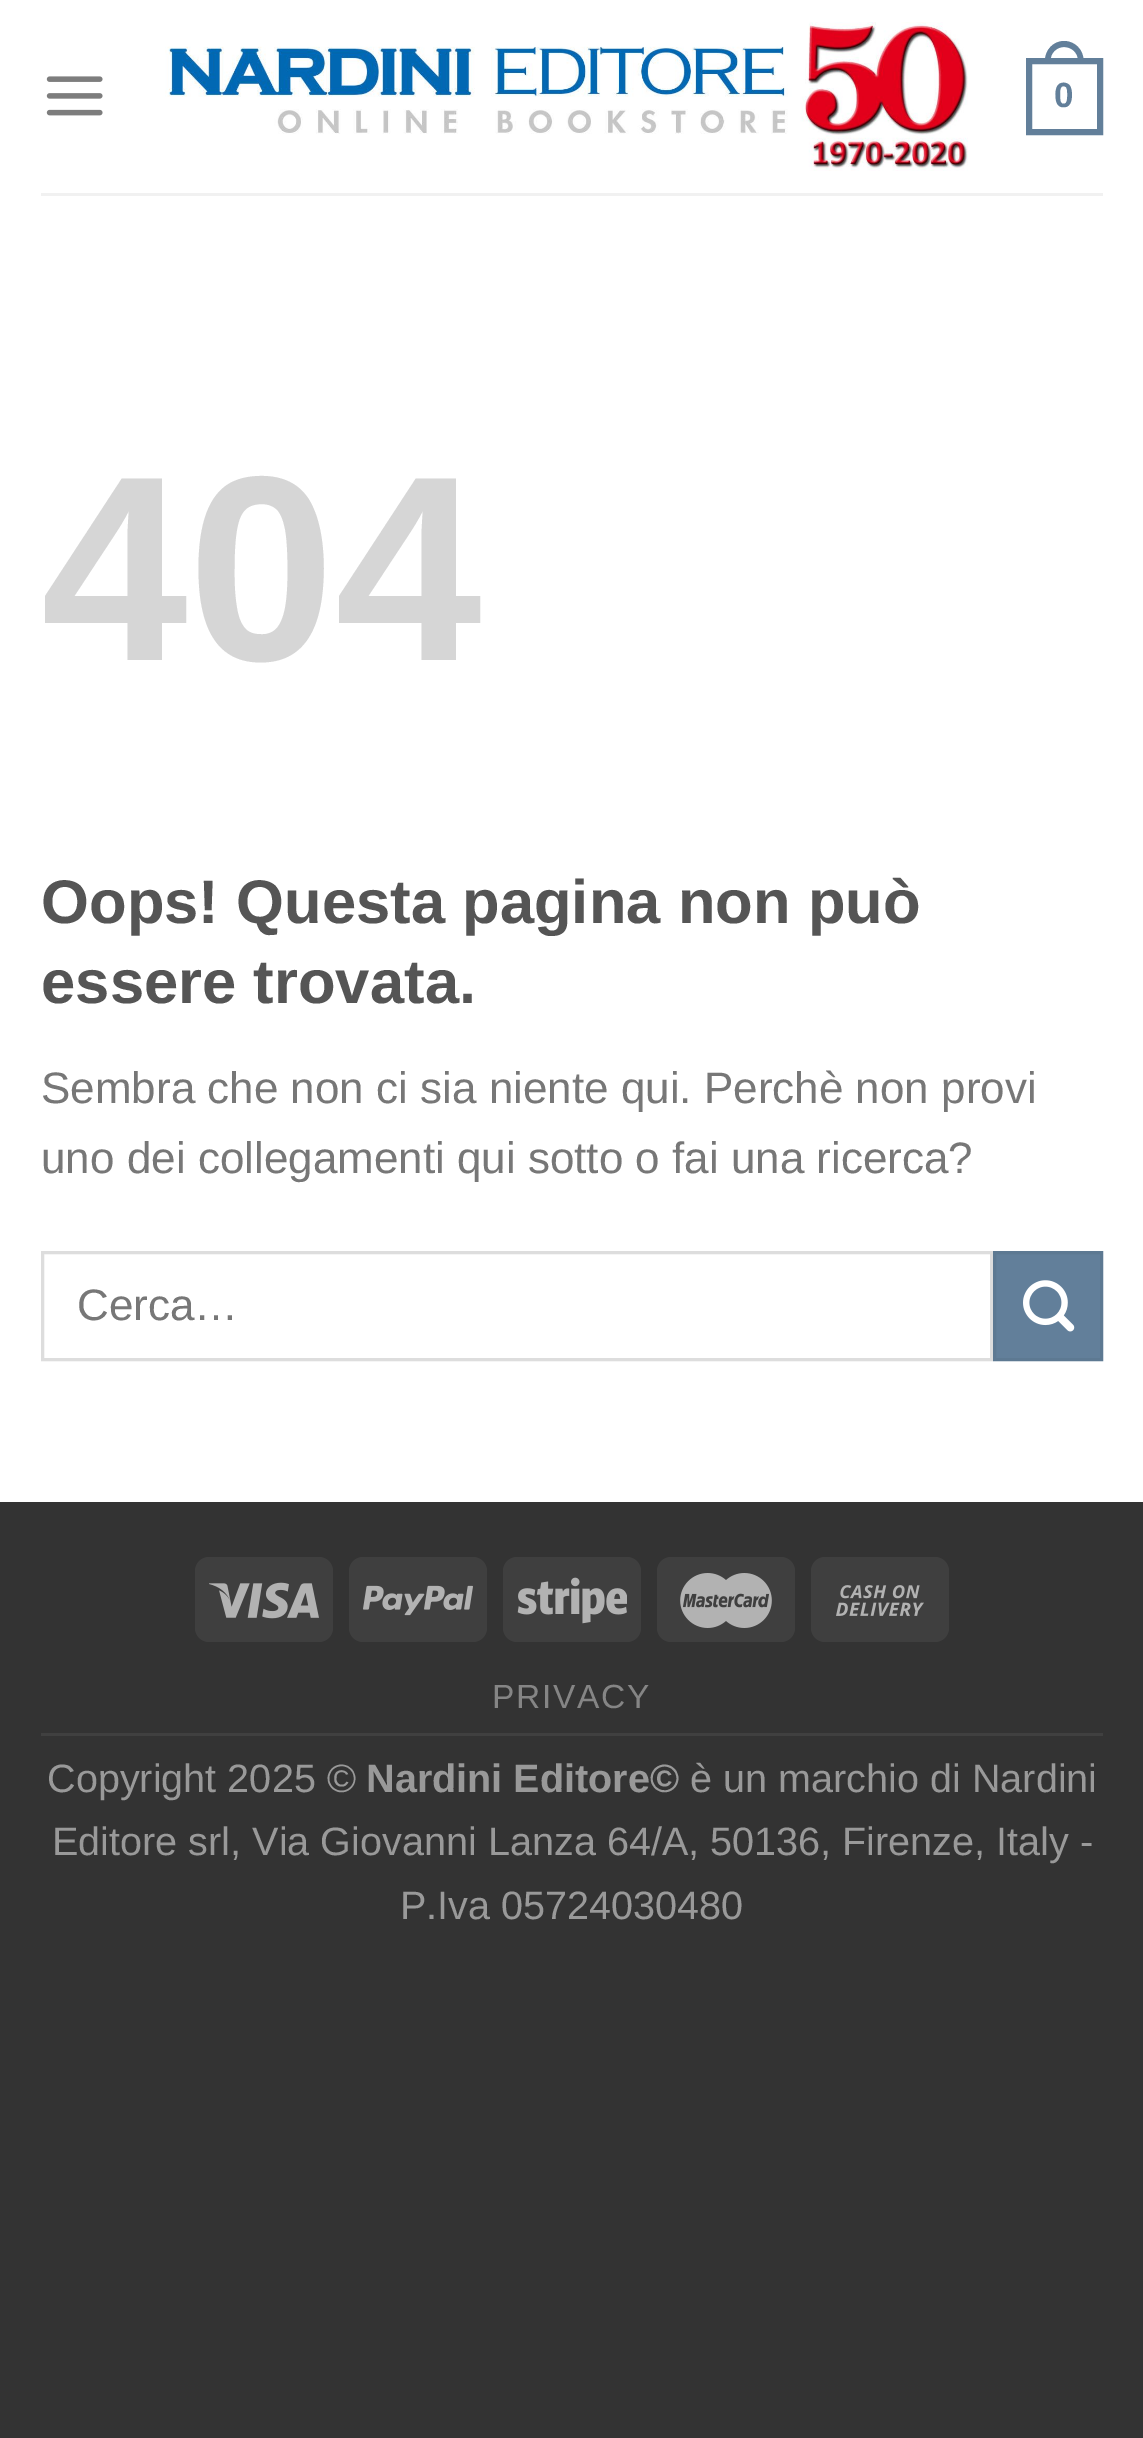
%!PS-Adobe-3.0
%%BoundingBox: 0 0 1143 2438
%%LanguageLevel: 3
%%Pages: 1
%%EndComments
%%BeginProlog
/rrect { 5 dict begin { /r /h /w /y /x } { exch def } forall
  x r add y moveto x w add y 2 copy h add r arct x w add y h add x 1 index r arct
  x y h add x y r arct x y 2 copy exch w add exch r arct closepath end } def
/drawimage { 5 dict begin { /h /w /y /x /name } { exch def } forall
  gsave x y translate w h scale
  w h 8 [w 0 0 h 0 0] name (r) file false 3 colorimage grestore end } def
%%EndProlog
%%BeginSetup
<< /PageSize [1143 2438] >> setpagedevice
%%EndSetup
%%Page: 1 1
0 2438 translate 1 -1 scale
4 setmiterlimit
0.2 setgray
0 0 1143 2438 rectfill
1 setgray
0 0 1143 1502 rectfill
(images/1.raw) 46 76 57 40 drawimage
(images/2.raw) 165 22 803 149 drawimage
0.384 0.498 0.604 setrgbcolor
6 setlinewidth
1029 61 71 71 rectstroke
newpath 1064 41 moveto 1075 41 1083.5 50 1083.5 60.5 curveto 1083.5 63 lineto 1045 63 lineto 1045 60.5 lineto 1045 50 1053.5 41 1064 41 curveto closepath 1064 47 moveto 1072 47 1078 53 1078 60.5 curveto 1078 63 lineto 1050.5 63 lineto 1050.5 60.5 lineto 1050.5 53 1056.5 47 1064 47 curveto closepath eofill
0.945 setgray
41 193 1062 3 rectfill
0.867 setgray
3 setlinewidth
42.5 1252.5 949 107 rectstroke
0.384 0.498 0.604 setrgbcolor
newpath 994.5 1252.5 moveto 1101.5 1252.5 lineto 1101.5 1359.5 lineto 994.5 1359.5 lineto closepath gsave fill grestore
0.365 0.475 0.573 setrgbcolor
stroke
(images/3.raw) 1023 1280 52 52 drawimage
0.247 setgray
195 1557 138 85 14 rrect fill
(images/4.raw) 209 1582 110 37 drawimage
349 1557 138 85 14 rrect fill
(images/5.raw) 363 1585 110 31 drawimage
503 1557 138 85 14 rrect fill
(images/6.raw) 517 1577 110 47 drawimage
657 1557 138 85 14 rrect fill
(images/7.raw) 680 1573 92 55 drawimage
811 1557 138 85 14 rrect fill
(images/8.raw) 836 1585 88 31 drawimage
0.251 setgray
41 1733 1062 3 rectfill
/LiberationSans-Bold [35 0 0 -35 0 0] selectfont
0.384 0.498 0.604 setrgbcolor
1054 107 moveto (0) show
/LiberationSans-Bold [264 0 0 -264 0 0] selectfont
0.839 setgray
41 660 moveto (404) show
/LiberationSans-Bold [61.6 0 0 -61.6 0 0] selectfont
0.333 setgray
41 923 moveto (Oops! Questa pagina non può) show
41 1003 moveto (essere trovata.) show
/LiberationSans-Regular [44 0 0 -44 0 0] selectfont
0.467 setgray
41 1103 moveto (Sembra che non ci sia niente qui. Perchè non provi) show
41 1173 moveto (uno dei collegamenti qui sotto o fai una ricerca?) show
77 1320 moveto (Cerca…) show
/LiberationSans-Regular [33.5 0 0 -33.5 0 0] selectfont
0.522 setgray
492 1708 moveto 1.75 0 (PRIVACY) ashow
/LiberationSans-Regular [39.6 0 0 -39.6 0 0] selectfont
0.6 setgray
47 1792 moveto (Copyright 2025 ©) show
/LiberationSans-Bold [39.6 0 0 -39.6 0 0] selectfont
366 1792 moveto (Nardini Editore©) show
/LiberationSans-Regular [39.6 0 0 -39.6 0 0] selectfont
690 1792 moveto (è un marchio di Nardini) show
52 1855 moveto (Editore srl, Via Giovanni Lanza 64/A, 50136, Firenze, Italy -) show
400 1919 moveto (P.Iva 05724030480) show
showpage
%%EOF
